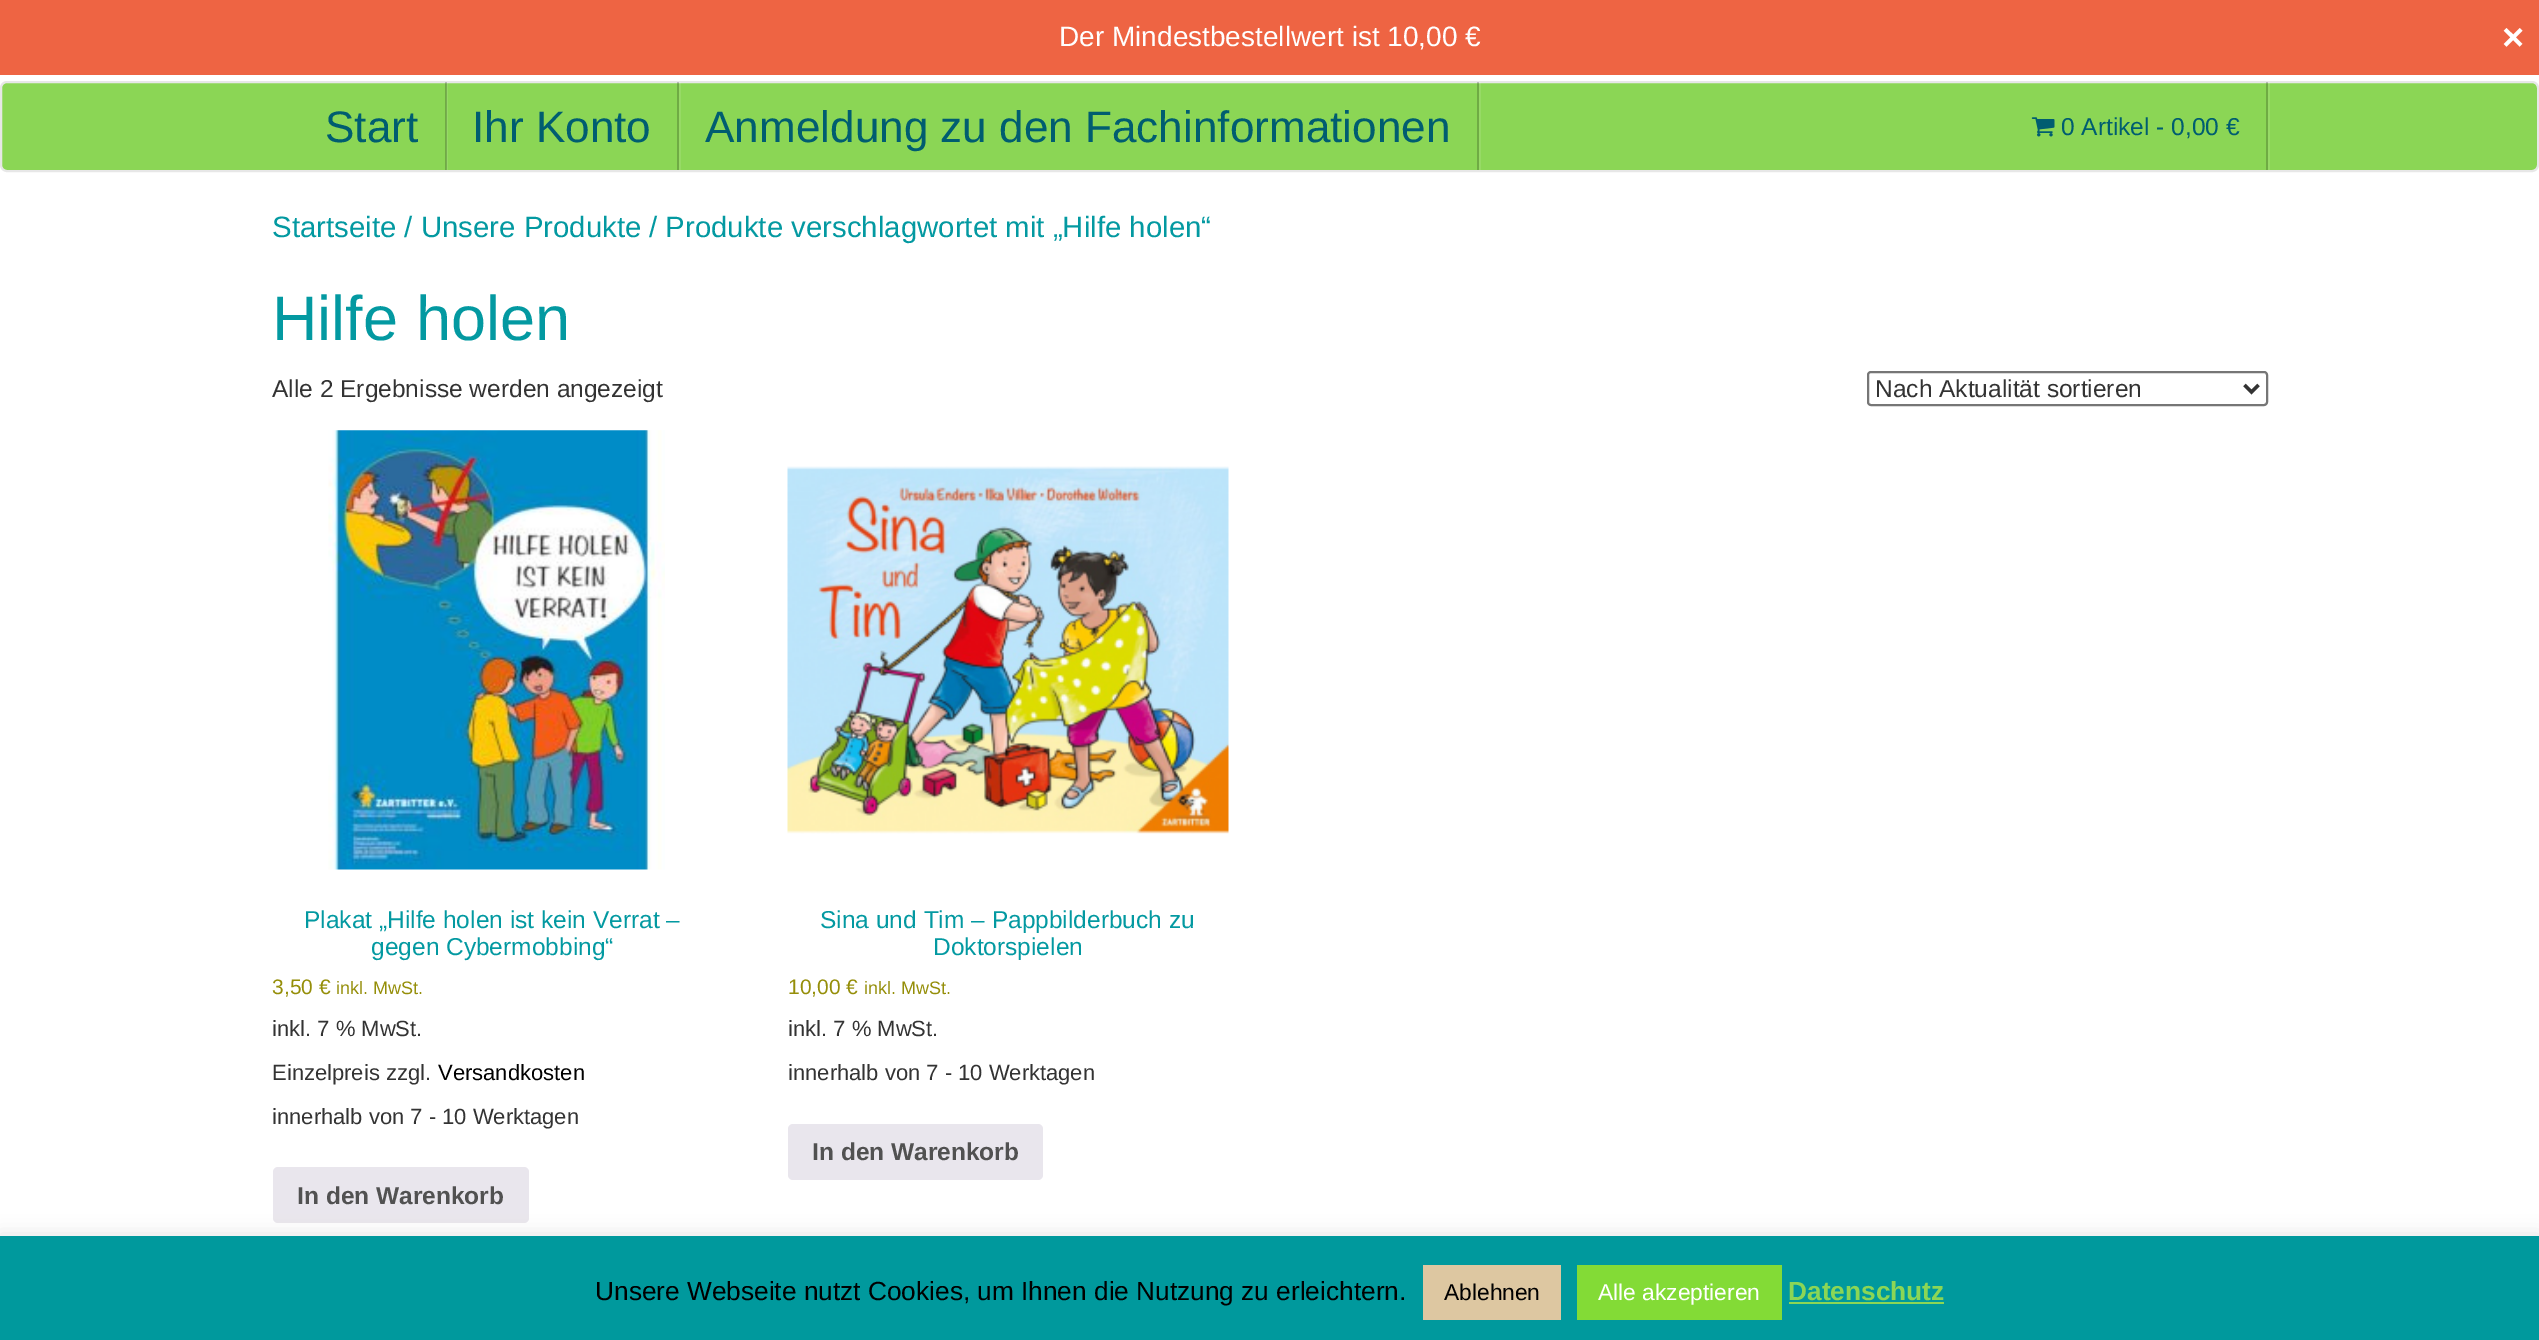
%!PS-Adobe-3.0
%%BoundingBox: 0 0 2539 1340
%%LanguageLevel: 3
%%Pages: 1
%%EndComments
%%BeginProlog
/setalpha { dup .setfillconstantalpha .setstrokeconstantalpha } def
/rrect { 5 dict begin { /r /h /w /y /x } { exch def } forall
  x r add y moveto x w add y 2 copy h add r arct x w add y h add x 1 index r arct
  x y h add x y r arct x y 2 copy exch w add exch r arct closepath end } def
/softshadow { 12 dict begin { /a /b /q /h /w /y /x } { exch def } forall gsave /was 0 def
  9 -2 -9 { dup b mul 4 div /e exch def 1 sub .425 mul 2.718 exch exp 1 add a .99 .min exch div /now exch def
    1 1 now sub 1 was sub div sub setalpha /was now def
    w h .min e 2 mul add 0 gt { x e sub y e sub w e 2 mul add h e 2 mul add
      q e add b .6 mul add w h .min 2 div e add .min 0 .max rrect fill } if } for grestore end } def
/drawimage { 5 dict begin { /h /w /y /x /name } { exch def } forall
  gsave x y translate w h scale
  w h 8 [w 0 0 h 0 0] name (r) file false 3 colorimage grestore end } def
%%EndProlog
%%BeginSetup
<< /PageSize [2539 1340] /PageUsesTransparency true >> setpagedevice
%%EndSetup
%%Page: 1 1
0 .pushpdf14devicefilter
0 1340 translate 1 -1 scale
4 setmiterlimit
1 setgray
0 0 2539 1340 rectfill
0.933 0.392 0.263 setrgbcolor
0 0 2539 75 rectfill
0.545 0.839 0.333 setrgbcolor
1 82 2537 89 6 rrect gsave fill grestore
0.906 setgray
2 setlinewidth
stroke
0.1 setalpha
1 setgray
newpath 301 82 moveto 446 82 lineto 446 170 lineto 301 170 lineto 448 170 lineto 448 82 lineto closepath fill
0.2 setalpha
0 setgray
445 82 2 88 rectfill
0.1 setalpha
1 setgray
newpath 448 82 moveto 679 82 lineto 679 170 lineto 448 170 lineto 681 170 lineto 681 82 lineto closepath fill
0.2 setalpha
0 setgray
677 82 2 88 rectfill
0.1 setalpha
1 setgray
newpath 681 82 moveto 1479 82 lineto 1479 170 lineto 681 170 lineto 1481 170 lineto 1481 82 lineto closepath fill
0.2 setalpha
0 setgray
1477 82 2 88 rectfill
0.1 setalpha
1 setgray
newpath 2007 82 moveto 2268 82 lineto 2268 170 lineto 2007 170 lineto 2270 170 lineto 2270 82 lineto closepath fill
0.2 setalpha
0 setgray
2266 82 2 88 rectfill
1 setalpha
(images/1.raw) 2031 117 24 20 drawimage
0.463 setgray
1868 372 399 33 3 rrect stroke
0.2 setgray
3.5 setlinewidth
newpath 2244.5 385 moveto 2251.5 392 lineto 2258.5 385 lineto stroke
(images/2.raw) 328 430 337 440 drawimage
0.914 0.902 0.929 setrgbcolor
273 1167 256 56 5 rrect fill
(images/3.raw) 787 466 442 368 drawimage
788 1124 255 56 5 rrect fill
0.675 0.671 0.671 setrgbcolor
0 1234 2539 105 0 9 0.3 softshadow
0 0.6 0.616 setrgbcolor
0 1236 2539 104 rectfill
0.867 0.78 0.631 setrgbcolor
1423 1265 138 55 rectfill
0.514 0.859 0.212 setrgbcolor
1577 1265 205 55 rectfill
0.545 0.839 0.333 setrgbcolor
1789 1302 155 2 rectfill
/LiberationSans-Regular [28 0 0 -28 0 0] selectfont
1 setgray
1059 46 moveto (Der Mindestbestellwert ist 10,00 €) show
/LiberationSans-Bold [38 0 0 -38 0 0] selectfont
2502 50 moveto (×) show
/LiberationSans-Regular [44.1 0 0 -44.1 0 0] selectfont
0 0.365 0.439 setrgbcolor
325 142 moveto (Start) show
472 142 moveto (Ihr Konto) show
705 142 moveto (Anmeldung zu den Fachinformationen) show
/LiberationSans-Regular [24.5 0 0 -24.5 0 0] selectfont
2061 135 moveto (0 Artikel - 0,00 €) show
/LiberationSans-Regular [29.4 0 0 -29.4 0 0] selectfont
0.012 0.6 0.631 setrgbcolor
272 237 moveto (Startseite / Unsere Produkte) show
649 237 moveto (/ Produkte verschlagwortet mit „Hilfe holen“) show
/LiberationSans-Regular [63 0 0 -63 0 0] selectfont
272 340 moveto (Hilfe holen) show
/LiberationSans-Regular [24.5 0 0 -24.5 0 0] selectfont
0.2 setgray
272 397 moveto (Alle 2 Ergebnisse werden angezeigt) show
1875 397 moveto (Nach Aktualität sortieren) show
0.012 0.6 0.631 setrgbcolor
304 928 moveto (Plakat „Hilfe holen ist kein Verrat –) show
371 955 moveto (gegen Cybermobbing“) show
/LiberationSans-Regular [21 0 0 -21 0 0] selectfont
0.584 0.557 0.035 setrgbcolor
272 994 moveto (3,50 €) show
/LiberationSans-Regular [18 0 0 -18 0 0] selectfont
336 994 moveto (inkl. MwSt.) show
/LiberationSans-Regular [22 0 0 -22 0 0] selectfont
0.2 setgray
272 1036 moveto (inkl. 7 % MwSt.) show
272 1080 moveto (Einzelpreis zzgl.) show
0 setgray
438 1080 moveto (Versandkosten) show
0.2 setgray
272 1124 moveto (innerhalb von 7 - 10 Werktagen) show
/LiberationSans-Bold [24.5 0 0 -24.5 0 0] selectfont
0.318 setgray
297 1204 moveto (In den Warenkorb) show
/LiberationSans-Regular [24.5 0 0 -24.5 0 0] selectfont
0.012 0.6 0.631 setrgbcolor
820 928 moveto (Sina und Tim – Pappbilderbuch zu) show
933 955 moveto (Doktorspielen) show
/LiberationSans-Regular [21 0 0 -21 0 0] selectfont
0.584 0.557 0.035 setrgbcolor
788 994 moveto (10,00 €) show
/LiberationSans-Regular [18 0 0 -18 0 0] selectfont
864 994 moveto (inkl. MwSt.) show
/LiberationSans-Regular [22 0 0 -22 0 0] selectfont
0.2 setgray
788 1036 moveto (inkl. 7 % MwSt.) show
788 1080 moveto (innerhalb von 7 - 10 Werktagen) show
/LiberationSans-Bold [24.5 0 0 -24.5 0 0] selectfont
0.318 setgray
812 1160 moveto (In den Warenkorb) show
/LiberationSans-Regular [26.25 0 0 -26.25 0 0] selectfont
0 setgray
595 1300 moveto (Unsere Webseite nutzt Cookies, um Ihnen die Nutzung zu erleichtern.) show
/LiberationSans-Regular [22.75 0 0 -22.75 0 0] selectfont
1444 1300 moveto (Ablehnen) show
1 setgray
1598 1300 moveto (Alle akzeptieren) show
/LiberationSans-Bold [26.25 0 0 -26.25 0 0] selectfont
0.545 0.839 0.333 setrgbcolor
1788 1300 moveto (Datenschutz) show
.poppdf14devicefilter showpage
%%EOF
